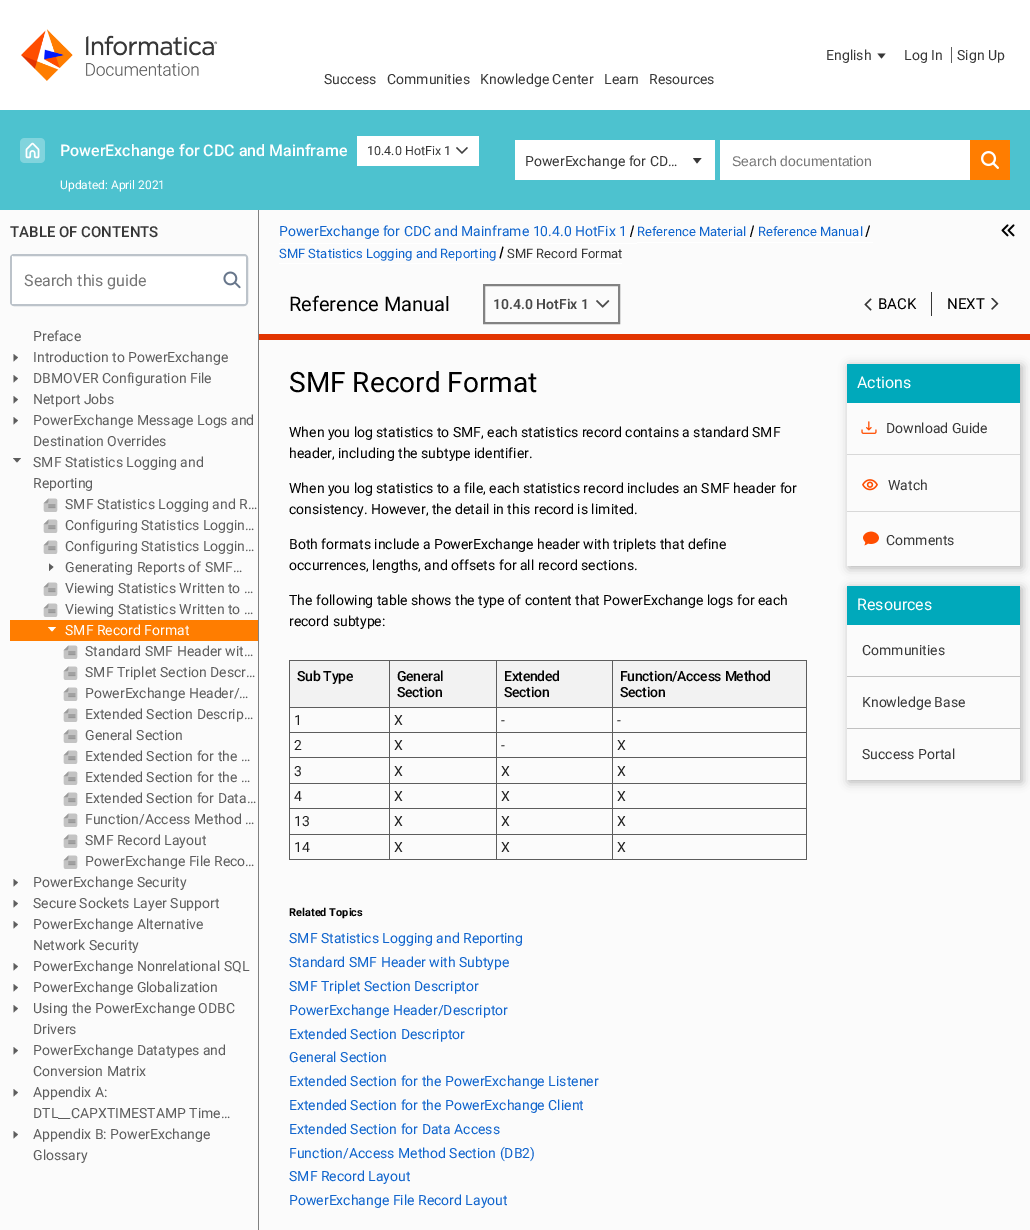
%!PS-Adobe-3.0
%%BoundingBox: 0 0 1030 1230
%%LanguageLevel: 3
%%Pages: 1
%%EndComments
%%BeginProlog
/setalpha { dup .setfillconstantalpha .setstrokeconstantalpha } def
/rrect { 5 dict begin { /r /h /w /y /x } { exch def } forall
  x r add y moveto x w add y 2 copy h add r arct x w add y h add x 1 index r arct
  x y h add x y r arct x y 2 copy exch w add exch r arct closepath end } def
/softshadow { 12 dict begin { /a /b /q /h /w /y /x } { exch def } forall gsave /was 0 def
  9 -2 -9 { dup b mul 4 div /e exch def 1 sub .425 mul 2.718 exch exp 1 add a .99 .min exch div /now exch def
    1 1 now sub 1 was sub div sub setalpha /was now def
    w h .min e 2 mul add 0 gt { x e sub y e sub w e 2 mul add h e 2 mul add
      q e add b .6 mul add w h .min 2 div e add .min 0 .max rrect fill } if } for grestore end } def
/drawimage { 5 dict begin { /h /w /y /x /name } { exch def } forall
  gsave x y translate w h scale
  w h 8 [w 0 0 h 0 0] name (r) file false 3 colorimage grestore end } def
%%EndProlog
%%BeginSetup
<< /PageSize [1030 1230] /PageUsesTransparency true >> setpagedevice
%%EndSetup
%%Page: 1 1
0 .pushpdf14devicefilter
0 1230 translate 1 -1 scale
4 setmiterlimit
1 setgray
0 0 1030 1230 rectfill
(images/1.raw) 21 29 197 52 drawimage
0.216 setgray
newpath 885.5 53.5 moveto 881.5 58.5 lineto 877.5 53.5 lineto closepath fill
0.365 setgray
951 47 1 16 rectfill
0.302 0.761 0.812 setrgbcolor
0 110 1030 100 rectfill
(images/2.raw) 20 138 25 25 drawimage
1 setgray
357 136 122 30 rectfill
(images/3.raw) 456 147 12 7 drawimage
515 140 200 40 rectfill
0.216 setgray
newpath 701.5 158 moveto 697 163.5 lineto 693 158 lineto closepath fill
1 setgray
720 140 250 40 rectfill
1 0.49 0 setrgbcolor
970 140 40 40 rectfill
(images/4.raw) 981 151 18 18 drawimage
0.984 setgray
0 210 258 1020 rectfill
1 setgray
10.5 254.5 237 51 3.5 rrect gsave fill grestore
0.737 0.765 0.792 setrgbcolor
stroke
11.5 255.5 235 49 1.5 rrect stroke
1 setgray
12 256 1 48 rectfill
(images/5.raw) 223 271 18 18 drawimage
0.984 setgray
259 210 771 1020 rectfill
(images/6.raw) 1001 224 14 13 drawimage
0.365 setgray
newpath 13.5 354 moveto 18 357.5 lineto 13.5 361.5 lineto closepath fill
newpath 13.5 375 moveto 18 378.5 lineto 13.5 382.5 lineto closepath fill
newpath 13.5 396 moveto 18 399.5 lineto 13.5 403.5 lineto closepath fill
newpath 13.5 417 moveto 18 420.5 lineto 13.5 424.5 lineto closepath fill
newpath 21 458 moveto 17 462.5 lineto 13 458 lineto closepath fill
(images/7.raw) 43 498 15 14 drawimage
(images/7.raw) 43 519 15 14 drawimage
(images/7.raw) 43 540 15 14 drawimage
newpath 49 563.5 moveto 53.5 567 lineto 49 571 lineto closepath fill
(images/7.raw) 43 582 15 14 drawimage
(images/7.raw) 43 603 15 14 drawimage
1 0.49 0 setrgbcolor
10 620 248 21 rectfill
1 setgray
newpath 56 627 moveto 52 631.5 lineto 48 627 lineto closepath fill
(images/7.raw) 63 645 15 14 drawimage
(images/7.raw) 63 666 15 14 drawimage
(images/7.raw) 63 687 15 14 drawimage
(images/7.raw) 63 708 15 14 drawimage
(images/7.raw) 63 729 15 14 drawimage
(images/8.raw) 63 750 15 14 drawimage
(images/7.raw) 63 771 15 14 drawimage
(images/7.raw) 63 792 15 14 drawimage
(images/7.raw) 63 813 15 14 drawimage
(images/7.raw) 63 834 15 14 drawimage
(images/7.raw) 63 855 15 14 drawimage
0.365 setgray
newpath 13.5 879 moveto 18 882.5 lineto 13.5 886.5 lineto closepath fill
newpath 13.5 900 moveto 18 903.5 lineto 13.5 907.5 lineto closepath fill
newpath 13.5 921 moveto 18 924.5 lineto 13.5 928.5 lineto closepath fill
newpath 13.5 963 moveto 18 966.5 lineto 13.5 970.5 lineto closepath fill
newpath 13.5 984 moveto 18 987.5 lineto 13.5 991.5 lineto closepath fill
newpath 13.5 1005 moveto 18 1008.5 lineto 13.5 1012.5 lineto closepath fill
newpath 13.5 1047 moveto 18 1050.5 lineto 13.5 1054.5 lineto closepath fill
newpath 13.5 1089 moveto 18 1092.5 lineto 13.5 1096.5 lineto closepath fill
newpath 13.5 1131 moveto 18 1134.5 lineto 13.5 1138.5 lineto closepath fill
0.502 setgray
258 210 1 1020 rectfill
1 setgray
279 243 358 1 rectfill
0 setgray
newpath 633 225.5 moveto 634 225.5 lineto 631 237 lineto 630 237 lineto closepath fill
1 setgray
637 242 236 1 rectfill
0 setgray
newpath 753 225.5 moveto 754 225.5 lineto 751 237 lineto 750 237 lineto closepath fill
newpath 869 225.5 moveto 870 225.5 lineto 866.5 237 lineto 865.5 237 lineto closepath fill
1 setgray
279 263 343 1 rectfill
0 setgray
newpath 502.5 246.5 moveto 503.5 247 lineto 500.5 258.5 lineto 499.5 258 lineto closepath fill
0.51 setgray
2 setlinewidth
484 285 135 38 rectstroke
(images/9.raw) 596 300 14 8 drawimage
(images/10.raw) 864 298 8 13 drawimage
0.216 setgray
931 292 1 24 rectfill
(images/11.raw) 991 298 8 12 drawimage
0.886 0.204 0 setrgbcolor
259 334 771 6 rectfill
0.365 setgray
289 660 518 1 rectfill
806 660 1 200 rectfill
289 859 518 1 rectfill
289 660 1 200 rectfill
0.949 setgray
290 661 99 46 rectfill
390 661 106 46 rectfill
0.365 setgray
612 707 195 1 rectfill
612 732 195 1 rectfill
612 757 195 1 rectfill
612 783 195 1 rectfill
612 808 195 1 rectfill
612 834 195 1 rectfill
612 834 1 26 rectfill
496 834 117 1 rectfill
612 808 1 27 rectfill
496 808 117 1 rectfill
612 783 1 26 rectfill
496 783 117 1 rectfill
612 757 1 27 rectfill
496 757 117 1 rectfill
612 732 1 26 rectfill
496 732 117 1 rectfill
612 707 1 26 rectfill
496 707 117 1 rectfill
496 834 1 26 rectfill
389 834 108 1 rectfill
496 808 1 27 rectfill
389 808 108 1 rectfill
496 783 1 26 rectfill
389 783 108 1 rectfill
496 757 1 27 rectfill
389 757 108 1 rectfill
496 732 1 26 rectfill
389 732 108 1 rectfill
496 707 1 26 rectfill
389 707 108 1 rectfill
389 834 1 26 rectfill
289 834 101 1 rectfill
389 808 1 27 rectfill
289 808 101 1 rectfill
389 783 1 26 rectfill
289 783 101 1 rectfill
389 757 1 27 rectfill
289 757 101 1 rectfill
389 732 1 26 rectfill
289 732 101 1 rectfill
389 707 1 26 rectfill
289 707 101 1 rectfill
389 660 1 48 rectfill
0.949 setgray
497 661 115 46 rectfill
0.365 setgray
496 660 1 48 rectfill
0.949 setgray
613 661 193 46 rectfill
0.365 setgray
612 660 1 48 rectfill
gsave
newpath 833 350 moveto 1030 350 lineto 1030 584 lineto 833 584 lineto closepath 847 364 moveto 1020 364 lineto 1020 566 lineto 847 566 lineto closepath eoclip newpath
0 setgray
849 366 173 202 0 5 0.3 softshadow
grestore
0 0.663 0.733 setrgbcolor
847 364 173 39 rectfill
0.847 setgray
847 454 173 1 rectfill
(images/12.raw) 861 421 16 13 drawimage
847 511 173 1 rectfill
(images/13.raw) 862 479 16 12 drawimage
(images/14.raw) 863 531 16 15 drawimage
gsave
newpath 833 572 moveto 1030 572 lineto 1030 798 lineto 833 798 lineto closepath 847 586 moveto 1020 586 lineto 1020 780 lineto 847 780 lineto closepath eoclip newpath
0 setgray
849 588 173 194 0 5 0.3 softshadow
grestore
0 0.663 0.733 setrgbcolor
847 586 173 39 rectfill
0.757 setgray
847 676 173 1 rectfill
847 728 173 1 rectfill
/Roboto-Regular [14 0 0 -14 0 0] selectfont
0.216 setgray
826 60 moveto (English) show
904 60 moveto (Log In) show
957 60 moveto (Sign Up) show
324 84 moveto (Success) show
387 84 moveto (Communities) show
480 84 moveto (Knowledge Center) show
604 84 moveto (Learn) show
649 84 moveto (Resources) show
/Roboto-Medium [16 0 0 -16 0 0] selectfont
1 setgray
60 156 moveto (PowerExchange for CDC and Mainframe) show
/Roboto-Regular [12.5 0 0 -12.5 0 0] selectfont
0.216 setgray
367 155 moveto (10.4.0 HotFix 1) show
/Roboto-Regular [12 0 0 -12 0 0] selectfont
1 setgray
60 189 moveto (Updated: April 2021) show
/Roboto-Regular [14 0 0 -14 0 0] selectfont
0.216 setgray
525 166 moveto (PowerExchange for CD…) show
/LiberationSans-Regular [14 0 0 -14 0 0] selectfont
0.459 setgray
732 166 moveto (Search documentation) show
/Roboto-Medium [15 0 0 -15 0 0] selectfont
0.216 setgray
10 237 moveto (TABLE OF CONTENTS) show
/Roboto-Regular [16 0 0 -16 0 0] selectfont
0.459 setgray
24 286 moveto (Search this guide) show
/Roboto-Regular [14 0 0 -14 0 0] selectfont
0.365 setgray
33 341 moveto (Preface) show
33 362 moveto (Introduction to PowerExchange) show
33 383 moveto (DBMOVER Configuration File) show
33 404 moveto (Netport Jobs) show
33 425 moveto (PowerExchange Message Logs and) show
33 446 moveto (Destination Overrides) show
33 467 moveto (SMF Statistics Logging and) show
33 488 moveto (Reporting) show
65 509 moveto (SMF Statistics Logging and R…) show
65 530 moveto (Configuring Statistics Loggin…) show
65 551 moveto (Configuring Statistics Loggin…) show
65 572 moveto (Generating Reports of SMF…) show
65 593 moveto (Viewing Statistics Written to …) show
65 614 moveto (Viewing Statistics Written to …) show
1 setgray
65 635 moveto (SMF Record Format) show
0.365 setgray
85 656 moveto (Standard SMF Header wit…) show
85 677 moveto (SMF Triplet Section Descr…) show
85 698 moveto (PowerExchange Header/…) show
85 719 moveto (Extended Section Descrip…) show
85 740 moveto (General Section) show
85 761 moveto (Extended Section for the …) show
85 782 moveto (Extended Section for the …) show
85 803 moveto (Extended Section for Data…) show
85 824 moveto (Function/Access Method …) show
85 845 moveto (SMF Record Layout) show
85 866 moveto (PowerExchange File Reco…) show
33 887 moveto (PowerExchange Security) show
33 908 moveto (Secure Sockets Layer Support) show
33 929 moveto (PowerExchange Alternative) show
33 950 moveto (Network Security) show
33 971 moveto (PowerExchange Nonrelational SQL) show
33 992 moveto (PowerExchange Globalization) show
33 1013 moveto (Using the PowerExchange ODBC) show
33 1034 moveto (Drivers) show
33 1055 moveto (PowerExchange Datatypes and) show
33 1076 moveto (Conversion Matrix) show
33 1097 moveto (Appendix A:) show
33 1118 moveto (DTL__CAPXTIMESTAMP Time…) show
33 1139 moveto (Appendix B: PowerExchange) show
33 1160 moveto (Glossary) show
0.059 0.392 0.804 setrgbcolor
279 236 moveto (PowerExchange for CDC and Mainframe 10.4.0 HotFix 1) show
/Roboto-Regular [13 0 0 -13 0 0] selectfont
637 236 moveto (Reference Material) show
758 236 moveto (Reference Manual) show
279 258 moveto (SMF Statistics Logging and Reporting) show
0.216 setgray
507 258 moveto (SMF Record Format) show
/Roboto-Regular [20 0 0 -20 0 0] selectfont
0 setgray
289 311 moveto (Reference Manual) show
/Roboto-SemiBold [14 0 0 -14 0 0] selectfont
0.282 setgray
493 309 moveto (10.4.0 HotFix 1) show
/Roboto-Regular [15 0 0 -15 0 0] selectfont
0 setgray
878 309 moveto (BACK) show
947 309 moveto (NEXT) show
/Roboto-Regular [28 0 0 -28 0 0] selectfont
289 392 moveto (SMF Record Format) show
/Roboto-Regular [14 0 0 -14 0 0] selectfont
289 437 moveto (When you log statistics to SMF, each statistics record contains a standard SMF) show
289 458 moveto (header, including the subtype identifier.) show
289 493 moveto (When you log statistics to a file, each statistics record includes an SMF header for) show
289 514 moveto (consistency. However, the detail in this record is limited.) show
289 549 moveto (Both formats include a PowerExchange header with triplets that define) show
289 570 moveto (occurrences, lengths, and offsets for all record sections.) show
289 605 moveto (The following table shows the type of content that PowerExchange logs for each) show
289 626 moveto (record subtype:) show
/Roboto-Medium [14 0 0 -14 0 0] selectfont
297 681 moveto -0.3 0 (Sub Type) ashow
397 681 moveto -0.3 0 (General) ashow
397 697 moveto -0.3 0 (Section) ashow
504 681 moveto -0.3 0 (Extended) ashow
504 697 moveto -0.3 0 (Section) ashow
620 681 moveto -0.3 0 (Function/Access Method) ashow
620 697 moveto -0.3 0 (Section) ashow
/Roboto-Regular [14 0 0 -14 0 0] selectfont
0.125 setgray
294 725 moveto (1) show
394 725 moveto (X) show
501 725 moveto (-) show
617 725 moveto (-) show
294 750 moveto (2) show
394 750 moveto (X) show
501 750 moveto (-) show
617 750 moveto (X) show
294 776 moveto (3) show
394 776 moveto (X) show
501 776 moveto (X) show
617 776 moveto (X) show
294 801 moveto (4) show
394 801 moveto (X) show
501 801 moveto (X) show
617 801 moveto (X) show
294 826 moveto (13) show
394 826 moveto (X) show
501 826 moveto (X) show
617 826 moveto (X) show
294 852 moveto (14) show
394 852 moveto (X) show
501 852 moveto (X) show
617 852 moveto (X) show
/Roboto-Bold [11 0 0 -11 0 0] selectfont
0 setgray
289 916 moveto (Related Topics) show
/Roboto-Regular [14 0 0 -14 0 0] selectfont
0.059 0.392 0.804 setrgbcolor
289 943 moveto (SMF Statistics Logging and Reporting) show
289 967 moveto (Standard SMF Header with Subtype) show
289 991 moveto (SMF Triplet Section Descriptor) show
289 1015 moveto (PowerExchange Header/Descriptor) show
289 1039 moveto (Extended Section Descriptor) show
289 1062 moveto (General Section) show
289 1086 moveto (Extended Section for the PowerExchange Listener) show
289 1110 moveto (Extended Section for the PowerExchange Client) show
289 1134 moveto (Extended Section for Data Access) show
289 1158 moveto (Function/Access Method Section \(DB2\)) show
289 1181 moveto (SMF Record Layout) show
289 1205 moveto (PowerExchange File Record Layout) show
/Roboto-Regular [16 0 0 -16 0 0] selectfont
1 setgray
857 388 moveto (Actions) show
/Roboto-Regular [14 0 0 -14 0 0] selectfont
0.216 setgray
886 433 moveto (Download Guide) show
888 490 moveto (Watch) show
886 545 moveto (Comments) show
/Roboto-Regular [16 0 0 -16 0 0] selectfont
1 setgray
857 610 moveto (Resources) show
/Roboto-Regular [14 0 0 -14 0 0] selectfont
0.216 setgray
862 655 moveto (Communities) show
862 707 moveto (Knowledge Base) show
862 759 moveto (Success Portal) show
.poppdf14devicefilter showpage
%%EOF
